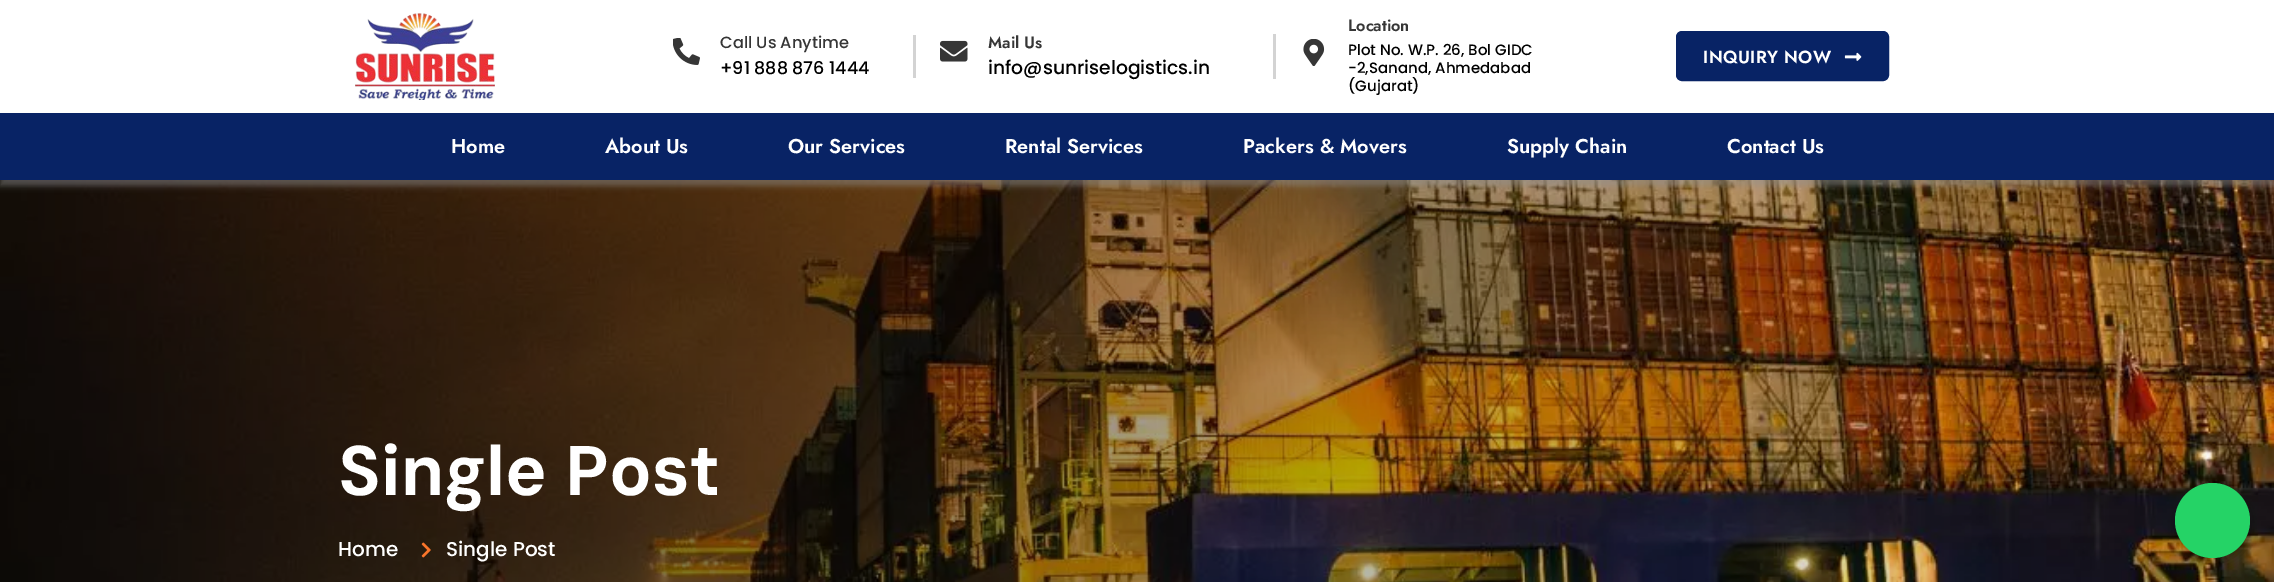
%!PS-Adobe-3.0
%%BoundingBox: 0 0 2274 582
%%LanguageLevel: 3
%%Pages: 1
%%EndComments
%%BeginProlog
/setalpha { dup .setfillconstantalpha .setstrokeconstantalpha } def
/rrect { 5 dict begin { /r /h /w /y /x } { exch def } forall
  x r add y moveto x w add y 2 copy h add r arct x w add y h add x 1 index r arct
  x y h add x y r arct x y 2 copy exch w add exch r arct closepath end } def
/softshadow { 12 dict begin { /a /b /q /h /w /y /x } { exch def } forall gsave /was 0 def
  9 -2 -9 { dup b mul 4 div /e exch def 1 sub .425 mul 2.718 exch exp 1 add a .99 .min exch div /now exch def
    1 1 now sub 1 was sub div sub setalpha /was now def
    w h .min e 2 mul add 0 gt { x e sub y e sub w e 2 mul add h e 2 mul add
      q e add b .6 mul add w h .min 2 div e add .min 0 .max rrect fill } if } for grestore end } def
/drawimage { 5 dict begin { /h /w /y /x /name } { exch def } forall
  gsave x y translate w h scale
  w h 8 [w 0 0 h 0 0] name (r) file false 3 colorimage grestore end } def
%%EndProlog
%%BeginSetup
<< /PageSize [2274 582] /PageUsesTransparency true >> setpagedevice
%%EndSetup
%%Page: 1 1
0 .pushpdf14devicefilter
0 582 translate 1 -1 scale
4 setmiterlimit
1 setgray
0 0 2274 582 rectfill
(images/1.raw) 355 13 140 87 drawimage
0.827 setgray
913 35 3 43 rectfill
(images/2.raw) 673 38 27 27 drawimage
1273 34 3 45 rectfill
(images/3.raw) 940 40 28 22 drawimage
(images/4.raw) 1303 39 22 27 drawimage
0.031 0.137 0.396 setrgbcolor
1677.5 32.5 210 47 4.5 rrect gsave fill grestore
3 setlinewidth
stroke
(images/5.raw) 1844 52 18 9 drawimage
(images/6.raw) 0 180 2274 402 drawimage
0.569 setgray
0 119 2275 67 0 3 0.5 softshadow
0.031 0.137 0.396 setrgbcolor
0 113 2274 67 rectfill
(images/7.raw) 421 542 10 16 drawimage
0 setgray
2175 488 75 75 37.5 6 0.3 softshadow
0.145 0.827 0.4 setrgbcolor
newpath 2212.5 520.5 37.5 0 360 arc closepath fill
/Poppins-Medium [16.25 0 0 -16.25 0 0] selectfont
0.212 setgray
720 48 moveto (Call Us Anytime) show
/Poppins-Medium [17.5 0 0 -17.5 0 0] selectfont
0 setgray
720 74 moveto (+91 888 876 1444) show
/Jost-SemiBold [16.25 0 0 -16.25 0 0] selectfont
0.212 setgray
988 48 moveto (Mail Us) show
/Poppins-Medium [18.75 0 0 -18.75 0 0] selectfont
0 setgray
988 74 moveto (info@sunriselogistics.in) show
/Jost-SemiBold [16.25 0 0 -16.25 0 0] selectfont
0.212 setgray
1348 31 moveto (Location) show
/Poppins-Medium [15 0 0 -15 0 0] selectfont
0 setgray
1348 55 moveto (Plot No. W.P. 26, Bol GIDC) show
1348 73 moveto (-2,Sanand, Ahmedabad) show
1348 91 moveto (\(Gujarat\)) show
/Jost-SemiBold [17.5 0 0 -17.5 0 0] selectfont
1 setgray
1703 63 moveto 0.4 0 (INQUIRY NOW) ashow
/Jost-SemiBold [20 0 0 -20 0 0] selectfont
451 153 moveto (Home) show
605 153 moveto (About Us) show
788 153 moveto (Our Services) show
1005 153 moveto (Rental Services) show
1243 153 moveto (Packers & Movers) show
1507 153 moveto (Supply Chain) show
1727 153 moveto (Contact Us) show
/DMSans-Bold [70 0 0 -70 0 0] selectfont
338 495 moveto 1 0 32 (Single Post) widthshow
/Poppins-Medium [20 0 0 -20 0 0] selectfont
338 556 moveto (Home) show
446 556 moveto (Single Post) show
.poppdf14devicefilter showpage
%%EOF
